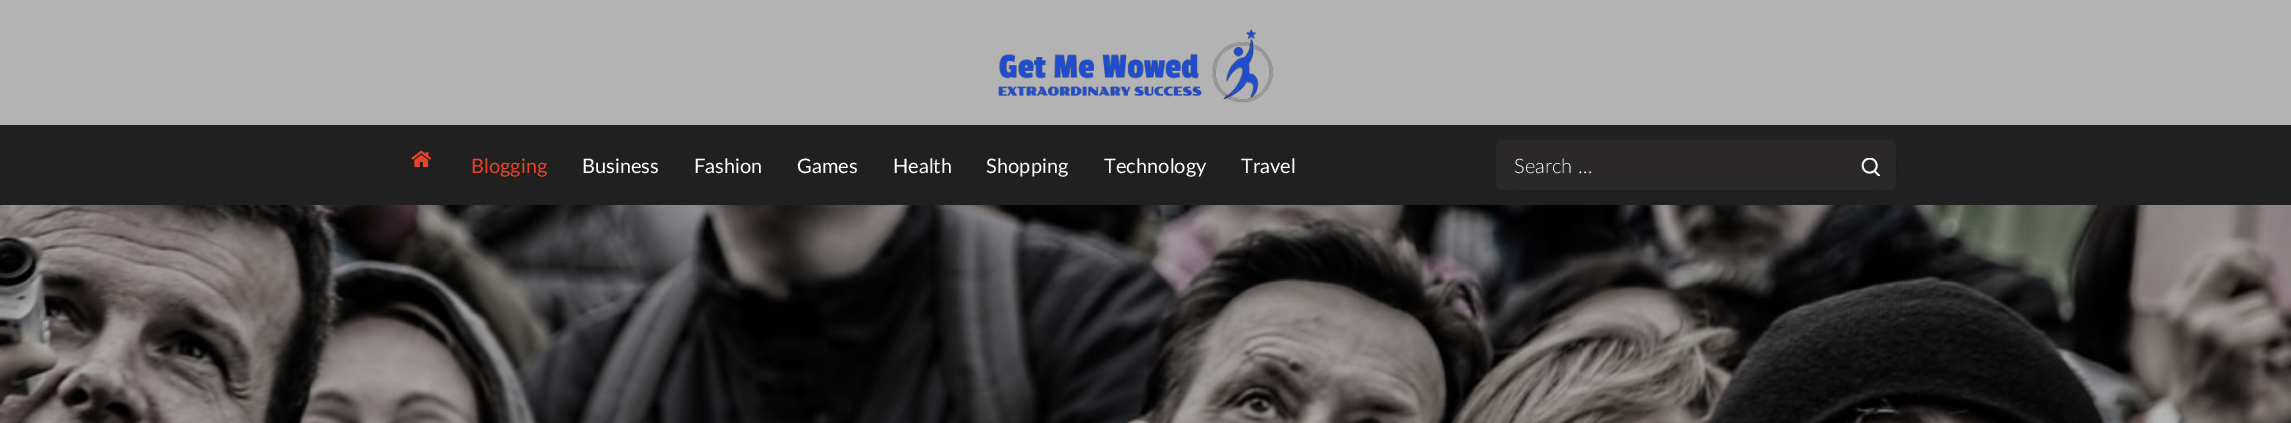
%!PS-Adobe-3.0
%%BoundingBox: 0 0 2291 423
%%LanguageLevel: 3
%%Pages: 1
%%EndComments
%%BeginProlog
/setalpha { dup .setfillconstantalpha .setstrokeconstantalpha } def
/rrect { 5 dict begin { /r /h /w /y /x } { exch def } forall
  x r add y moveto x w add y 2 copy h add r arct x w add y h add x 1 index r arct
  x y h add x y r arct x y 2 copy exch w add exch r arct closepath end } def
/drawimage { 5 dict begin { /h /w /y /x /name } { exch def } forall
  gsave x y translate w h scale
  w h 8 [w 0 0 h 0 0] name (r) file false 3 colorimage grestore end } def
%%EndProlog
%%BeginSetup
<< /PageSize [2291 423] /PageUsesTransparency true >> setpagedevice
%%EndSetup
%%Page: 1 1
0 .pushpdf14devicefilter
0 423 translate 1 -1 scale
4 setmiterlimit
1 setgray
0 0 2291 423 rectfill
0.702 setgray
0 0 2291 125 rectfill
(images/1.raw) 998 29 275 74 drawimage
0.125 setgray
0 125 2291 80 rectfill
(images/2.raw) 411 150 21 18 drawimage
0.114 setgray
newpath 1510 187 moveto 1514 190 1518 191 1523 191 curveto 1873 191 lineto 1887 191 1898 180 1898 166 curveto 1898 156 1893 148 1885 144 curveto 1892 148 1896 156 1896 165 curveto 1896 179 1885 190 1871 190 curveto 1521 190 lineto 1517 190 1513 189 1510 187 curveto closepath fill
0.28 setalpha
0.263 0.243 0.243 setrgbcolor
1496 140 400 50 6 rrect fill
1 setalpha
(images/3.raw) 1861 158 19 18 drawimage
(images/4.raw) 0 205 2291 218 drawimage
/Lato-Regular [20 0 0 -20 0 0] selectfont
0.902 0.263 0.165 setrgbcolor
471 173 moveto (Blogging) show
1 setgray
582 173 moveto (Business) show
694 173 moveto (Fashion) show
797 173 moveto (Games) show
893 173 moveto (Health) show
986 173 moveto (Shopping) show
1104 173 moveto (Technology) show
1241 173 moveto (Travel) show
/Lato-Light [20 0 0 -20 0 0] selectfont
1514 173 moveto (Search …) show
.poppdf14devicefilter showpage
%%EOF
